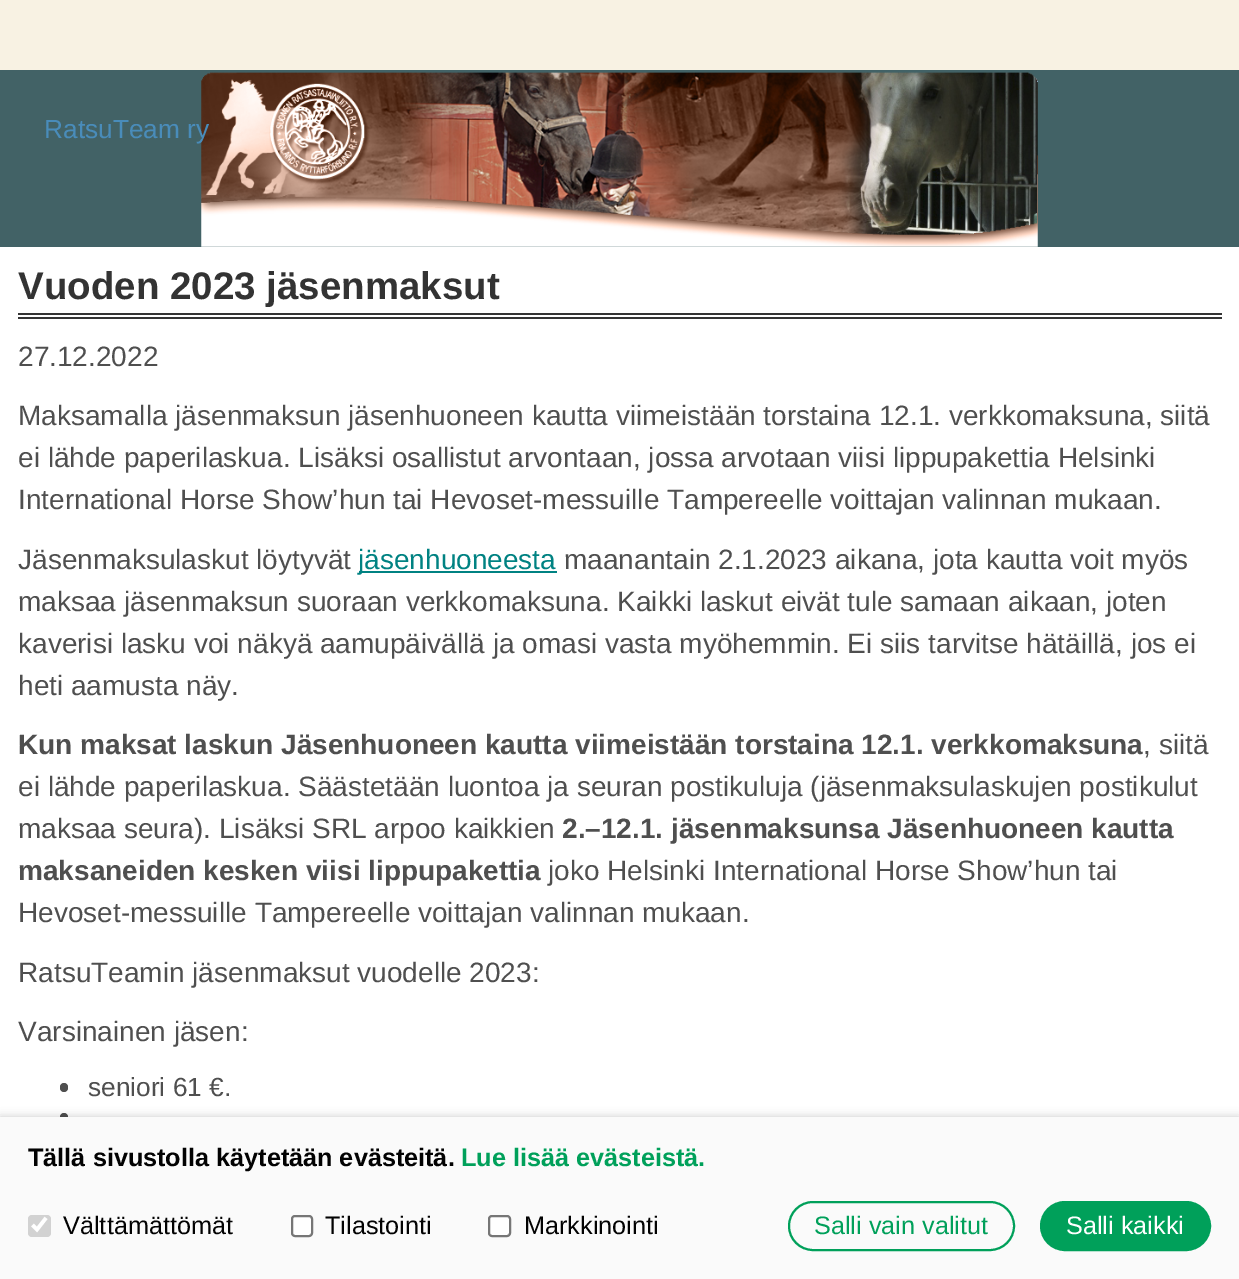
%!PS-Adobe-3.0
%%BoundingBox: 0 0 1239 1279
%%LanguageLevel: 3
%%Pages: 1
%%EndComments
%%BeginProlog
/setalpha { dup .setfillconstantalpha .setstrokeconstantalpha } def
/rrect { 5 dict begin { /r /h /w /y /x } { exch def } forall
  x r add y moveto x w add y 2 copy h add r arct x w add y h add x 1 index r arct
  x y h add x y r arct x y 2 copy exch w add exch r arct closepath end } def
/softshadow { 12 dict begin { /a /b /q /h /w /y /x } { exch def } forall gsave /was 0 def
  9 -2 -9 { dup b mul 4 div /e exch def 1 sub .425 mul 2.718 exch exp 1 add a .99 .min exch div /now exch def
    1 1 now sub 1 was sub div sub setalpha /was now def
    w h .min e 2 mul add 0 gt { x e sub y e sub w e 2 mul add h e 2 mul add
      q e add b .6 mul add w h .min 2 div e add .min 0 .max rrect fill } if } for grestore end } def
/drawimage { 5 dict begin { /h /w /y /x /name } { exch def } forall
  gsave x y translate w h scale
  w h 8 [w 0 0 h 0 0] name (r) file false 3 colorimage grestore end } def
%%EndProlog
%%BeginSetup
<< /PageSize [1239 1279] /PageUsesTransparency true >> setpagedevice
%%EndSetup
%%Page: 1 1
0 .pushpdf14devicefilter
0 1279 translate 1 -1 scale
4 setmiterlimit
0.973 0.949 0.89 setrgbcolor
0 0 1239 1279 rectfill
0.259 0.384 0.4 setrgbcolor
0 70 1239 177 rectfill
(images/1.raw) 201 72 837 175 drawimage
1 setgray
0 247 1239 870 rectfill
0.2 setgray
18 313 1204 2 rectfill
18 317 1204 2 rectfill
0 0.51 0.51 setrgbcolor
359 571 198 2 rectfill
0.31 setgray
60 1083 8 9 4 rrect fill
60 1113 8 9 4 rrect fill
0 setgray
0 1117 1239 162 0 4.5 0.2 softshadow
0.98 setgray
0 1117 1239 162 rectfill
0.824 setgray
28 1215 23 22 4 rrect fill
1 setgray
3.6 setlinewidth
newpath 32.5 1225 moveto 37 1229.5 lineto 46 1218 lineto stroke
292 1216 20 20 3 rrect gsave fill grestore
0.463 setgray
2 setlinewidth
stroke
1 setgray
489 1216 21 20 3 rrect gsave fill grestore
0.463 setgray
stroke
0 0.627 0.353 setrgbcolor
789 1202 225 48 24 rrect stroke
1041 1202 169 48 24 rrect gsave fill grestore
stroke
/LiberationSans-Regular [26.25 0 0 -26.25 0 0] selectfont
0.286 0.549 0.729 setrgbcolor
44 138 moveto (RatsuTeam ry) show
/LiberationSans-Bold [38.5 0 0 -38.5 0 0] selectfont
0.2 setgray
18 299 moveto (Vuoden 2023 jäsenmaksut) show
/LiberationSans-Regular [28 0 0 -28 0 0] selectfont
0.31 setgray
18 366 moveto (27.12.2022) show
18 425 moveto (Maksamalla jäsenmaksun jäsenhuoneen kautta viimeistään torstaina 12.1. verkkomaksuna, siitä) show
18 467 moveto (ei lähde paperilaskua. Lisäksi osallistut arvontaan, jossa arvotaan viisi lippupakettia Helsinki) show
18 509 moveto (International Horse Show’hun tai Hevoset-messuille Tampereelle voittajan valinnan mukaan.) show
18 569 moveto (Jäsenmaksulaskut löytyvät) show
0 0.51 0.51 setrgbcolor
358 569 moveto (jäsenhuoneesta) show
0.31 setgray
564 569 moveto (maanantain 2.1.2023 aikana, jota kautta voit myös) show
18 611 moveto (maksaa jäsenmaksun suoraan verkkomaksuna. Kaikki laskut eivät tule samaan aikaan, joten) show
18 653 moveto (kaverisi lasku voi näkyä aamupäivällä ja omasi vasta myöhemmin. Ei siis tarvitse hätäillä, jos ei) show
18 695 moveto (heti aamusta näy.) show
/LiberationSans-Bold [28 0 0 -28 0 0] selectfont
18 754 moveto (Kun maksat laskun Jäsenhuoneen kautta viimeistään torstaina 12.1. verkkomaksuna) show
/LiberationSans-Regular [28 0 0 -28 0 0] selectfont
1143 754 moveto (, siitä) show
18 796 moveto (ei lähde paperilaskua. Säästetään luontoa ja seuran postikuluja \(jäsenmaksulaskujen postikulut) show
18 838 moveto (maksaa seura\). Lisäksi SRL arpoo kaikkien) show
/LiberationSans-Bold [28 0 0 -28 0 0] selectfont
562 838 moveto (2.–12.1. jäsenmaksunsa Jäsenhuoneen kautta) show
18 880 moveto (maksaneiden kesken viisi lippupakettia) show
/LiberationSans-Regular [28 0 0 -28 0 0] selectfont
548 880 moveto (joko Helsinki International Horse Show’hun tai) show
18 922 moveto (Hevoset-messuille Tampereelle voittajan valinnan mukaan.) show
18 982 moveto (RatsuTeamin jäsenmaksut vuodelle 2023:) show
18 1041 moveto (Varsinainen jäsen:) show
/LiberationSans-Regular [26.25 0 0 -26.25 0 0] selectfont
88 1096 moveto (seniori 61 €.) show
/LiberationSans-Bold [25.25 0 0 -25.25 0 0] selectfont
0.008 setgray
28 1166 moveto (Tällä sivustolla käytetään evästeitä.) show
0 0.627 0.353 setrgbcolor
461 1166 moveto (Lue lisää evästeistä.) show
/LiberationSans-Regular [25.25 0 0 -25.25 0 0] selectfont
0.008 setgray
63 1234 moveto (Välttämättömät) show
325 1234 moveto (Tilastointi) show
524 1234 moveto (Markkinointi) show
0 0.627 0.353 setrgbcolor
814 1234 moveto (Salli vain valitut) show
1 setgray
1066 1234 moveto (Salli kaikki) show
.poppdf14devicefilter showpage
%%EOF
